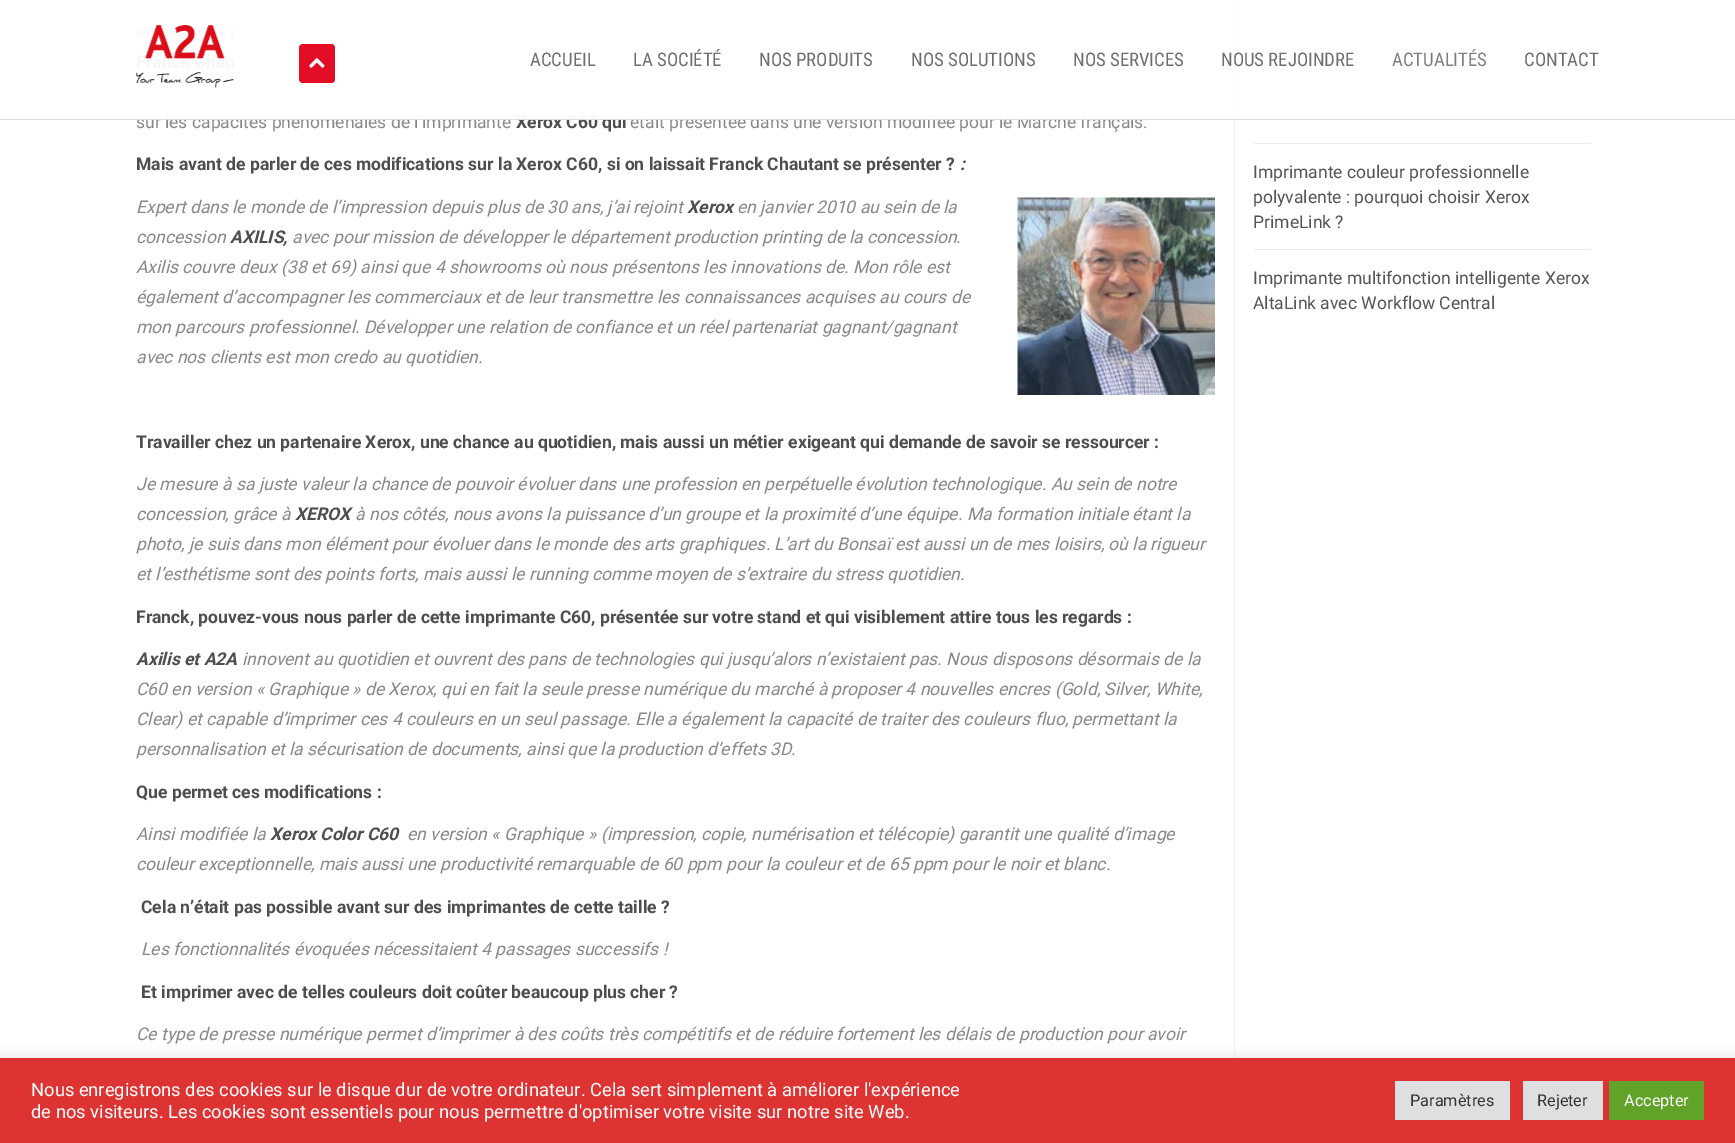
%!PS-Adobe-3.0
%%BoundingBox: 0 0 1735 1143
%%LanguageLevel: 3
%%Pages: 1
%%EndComments
%%BeginProlog
/setalpha { dup .setfillconstantalpha .setstrokeconstantalpha } def
/rrect { 5 dict begin { /r /h /w /y /x } { exch def } forall
  x r add y moveto x w add y 2 copy h add r arct x w add y h add x 1 index r arct
  x y h add x y r arct x y 2 copy exch w add exch r arct closepath end } def
/softshadow { 12 dict begin { /a /b /q /h /w /y /x } { exch def } forall gsave /was 0 def
  9 -2 -9 { dup b mul 4 div /e exch def 1 sub .425 mul 2.718 exch exp 1 add a .99 .min exch div /now exch def
    1 1 now sub 1 was sub div sub setalpha /was now def
    w h .min e 2 mul add 0 gt { x e sub y e sub w e 2 mul add h e 2 mul add
      q e add b .6 mul add w h .min 2 div e add .min 0 .max rrect fill } if } for grestore end } def
/drawimage { 5 dict begin { /h /w /y /x /name } { exch def } forall
  gsave x y translate w h scale
  w h 8 [w 0 0 h 0 0] name (r) file false 3 colorimage grestore end } def
%%EndProlog
%%BeginSetup
<< /PageSize [1735 1143] /PageUsesTransparency true >> setpagedevice
%%EndSetup
%%Page: 1 1
0 .pushpdf14devicefilter
0 1143 translate 1 -1 scale
4 setmiterlimit
1 setgray
0 0 1735 1143 rectfill
0.945 setgray
1234 0 1 1058 rectfill
(images/3.raw) 1017 197 198 198 drawimage
0.922 setgray
1254 61 337 1 rectfill
1254 143 337 1 rectfill
1254 249 337 1 rectfill
0.675 0.671 0.671 setrgbcolor
0 1056 1735 87 0 6 0.3 softshadow
0.867 0.2 0.2 setrgbcolor
0 1058 1735 85 rectfill
0.871 0.875 0.878 setrgbcolor
1395 1081 115 39 rectfill
1523 1081 80 39 rectfill
0.38 0.635 0.161 setrgbcolor
1609 1081 95 39 rectfill
/Roboto-Regular [17.5 0 0 -17.5 0 0] selectfont
0.533 setgray
136 128 moveto (sur les capacités phénoménales de l’imprimante) show
/Roboto-Bold [17.5 0 0 -17.5 0 0] selectfont
0.306 setgray
516 128 moveto (Xerox C60 qui) show
/Roboto-Regular [17.5 0 0 -17.5 0 0] selectfont
0.533 setgray
630 128 moveto (était présentée dans une version modifiée pour le Marché français.) show
0.95 setalpha
1 setgray
138 0 1453 120 rectfill
/RobotoCondensed-Regular [18.75 0 0 -18.75 0 0] selectfont
1 setalpha
0.431 setgray
1524 66 moveto (CONTACT) show
0.494 setgray
1392 66 moveto (ACTUALITÉS) show
0.431 setgray
1221 66 moveto (NOUS REJOINDRE) show
1073 66 moveto (NOS SERVICES) show
911 66 moveto (NOS SOLUTIONS) show
759 66 moveto (NOS PRODUITS) show
633 66 moveto (LA SOCIÉTÉ) show
530 66 moveto (ACCUEIL) show
0.95 setalpha
0.886 0 0.102 setrgbcolor
299 44 36 39 4 rrect fill
1 setalpha
(images/2.raw) 309 58 16 10 drawimage
(images/1.raw) 136 25 98 63 drawimage
0.95 setalpha
0.867 setgray
0 119 1735 1 rectfill
/Roboto-Bold [17.5 0 0 -17.5 0 0] selectfont
1 setalpha
0.306 setgray
136 170 moveto (Mais avant de parler de ces modifications sur la Xerox C60, si on laissait Franck Chautant se présenter ?) show
/Roboto-BoldItalic [17.5 0 0 -17.5 0 0] selectfont
960 170 moveto (:) show
/Roboto-Italic [17.5 0 0 -17.5 0 0] selectfont
0.533 setgray
136 213 moveto (Expert dans le monde de l’impression depuis plus de 30 ans, j’ai rejoint) show
/Roboto-BoldItalic [17.5 0 0 -17.5 0 0] selectfont
0.306 setgray
687 213 moveto (Xerox) show
/Roboto-Italic [17.5 0 0 -17.5 0 0] selectfont
0.533 setgray
737 213 moveto (en janvier 2010 au sein de la) show
136 243 moveto (concession) show
/Roboto-BoldItalic [17.5 0 0 -17.5 0 0] selectfont
0.306 setgray
230 243 moveto (AXILIS,) show
/Roboto-Italic [17.5 0 0 -17.5 0 0] selectfont
0.533 setgray
292 243 moveto (avec pour mission de développer le département production printing de la concession.) show
136 273 moveto (Axilis couvre deux \(38 et 69\) ainsi que 4 showrooms où nous présentons les innovations de. Mon rôle est) show
136 303 moveto (également d’accompagner les commerciaux et de leur transmettre les connaissances acquises au cours de) show
136 333 moveto (mon parcours professionnel. Développer une relation de confiance et un réel partenariat gagnant/gagnant) show
136 363 moveto (avec nos clients est mon credo au quotidien.) show
/Roboto-Bold [17.5 0 0 -17.5 0 0] selectfont
0.306 setgray
136 448 moveto (Travailler chez un partenaire Xerox, une chance au quotidien, mais aussi un métier exigeant qui demande de savoir se ressourcer :) show
/Roboto-Italic [17.5 0 0 -17.5 0 0] selectfont
0.533 setgray
136 490 moveto (Je mesure à sa juste valeur la chance de pouvoir évoluer dans une profession en perpétuelle évolution technologique. Au sein de notre) show
136 520 moveto (concession, grâce à) show
/Roboto-BoldItalic [17.5 0 0 -17.5 0 0] selectfont
0.306 setgray
295 520 moveto (XEROX) show
/Roboto-Italic [17.5 0 0 -17.5 0 0] selectfont
0.533 setgray
355 520 moveto (à nos côtés, nous avons la puissance d’un groupe et la proximité d’une équipe. Ma formation initiale étant la) show
136 550 moveto (photo, je suis dans mon élément pour évoluer dans le monde des arts graphiques. L’art du Bonsaï est aussi un de mes loisirs, où la rigueur) show
136 580 moveto (et l’esthétisme sont des points forts, mais aussi le running comme moyen de s’extraire du stress quotidien.) show
/Roboto-Bold [17.5 0 0 -17.5 0 0] selectfont
0.306 setgray
136 623 moveto (Franck, pouvez-vous nous parler de cette imprimante C60, présentée sur votre stand et qui visiblement attire tous les regards :) show
/Roboto-BoldItalic [17.5 0 0 -17.5 0 0] selectfont
136 665 moveto (Axilis et A2A) show
/Roboto-Italic [17.5 0 0 -17.5 0 0] selectfont
0.533 setgray
242 665 moveto (innovent au quotidien et ouvrent des pans de technologies qui jusqu’alors n’existaient pas. Nous disposons désormais de la) show
136 695 moveto (C60 en version « Graphique » de Xerox, qui en fait la seule presse numérique du marché à proposer 4 nouvelles encres \(Gold, Silver, White,) show
136 725 moveto (Clear\) et capable d’imprimer ces 4 couleurs en un seul passage. Elle a également la capacité de traiter des couleurs fluo, permettant la) show
136 755 moveto (personnalisation et la sécurisation de documents, ainsi que la production d’effets 3D.) show
/Roboto-Bold [17.5 0 0 -17.5 0 0] selectfont
0.306 setgray
136 798 moveto (Que permet ces modifications :) show
/Roboto-Italic [17.5 0 0 -17.5 0 0] selectfont
0.533 setgray
136 840 moveto (Ainsi modifiée la) show
/Roboto-BoldItalic [17.5 0 0 -17.5 0 0] selectfont
0.306 setgray
270 840 moveto (Xerox Color C60) show
/Roboto-Italic [17.5 0 0 -17.5 0 0] selectfont
0.533 setgray
407 840 moveto (en version « Graphique » \(impression, copie, numérisation et télécopie\) garantit une qualité d’image) show
136 870 moveto (couleur exceptionnelle, mais aussi une productivité remarquable de 60 ppm pour la couleur et de 65 ppm pour le noir et blanc.) show
/Roboto-Bold [17.5 0 0 -17.5 0 0] selectfont
0.306 setgray
141 913 moveto (Cela n’était pas possible avant sur des imprimantes de cette taille ?) show
/Roboto-Italic [17.5 0 0 -17.5 0 0] selectfont
0.533 setgray
141 955 moveto (Les fonctionnalités évoquées nécessitaient 4 passages successifs !) show
/Roboto-Bold [17.5 0 0 -17.5 0 0] selectfont
0.306 setgray
141 998 moveto (Et imprimer avec de telles couleurs doit coûter beaucoup plus cher ?) show
/Roboto-Italic [17.5 0 0 -17.5 0 0] selectfont
0.533 setgray
136 1040 moveto (Ce type de presse numérique permet d’imprimer à des coûts très compétitifs et de réduire fortement les délais de production pour avoir) show
/Roboto-Regular [17.5 0 0 -17.5 0 0] selectfont
0.333 setgray
1253 178 moveto (Imprimante couleur professionnelle) show
1253 203 moveto (polyvalente : pourquoi choisir Xerox) show
1253 228 moveto (PrimeLink ?) show
1253 284 moveto (Imprimante multifonction intelligente Xerox) show
1253 309 moveto (AltaLink avec Workflow Central) show
/Roboto-Regular [18.33 0 0 -18.33 0 0] selectfont
1 setgray
31 1096 moveto (Nous enregistrons des cookies sur le disque dur de votre ordinateur. Cela sert simplement à améliorer l'expérience) show
31 1118 moveto (de nos visiteurs. Les cookies sont essentiels pour nous permettre d'optimiser votre visite sur notre site Web.) show
/Roboto-Regular [16.25 0 0 -16.25 0 0] selectfont
0.2 setgray
1410 1106 moveto (Paramètres) show
1537 1106 moveto (Rejeter) show
1 setgray
1624 1106 moveto (Accepter) show
.poppdf14devicefilter showpage
%%EOF
